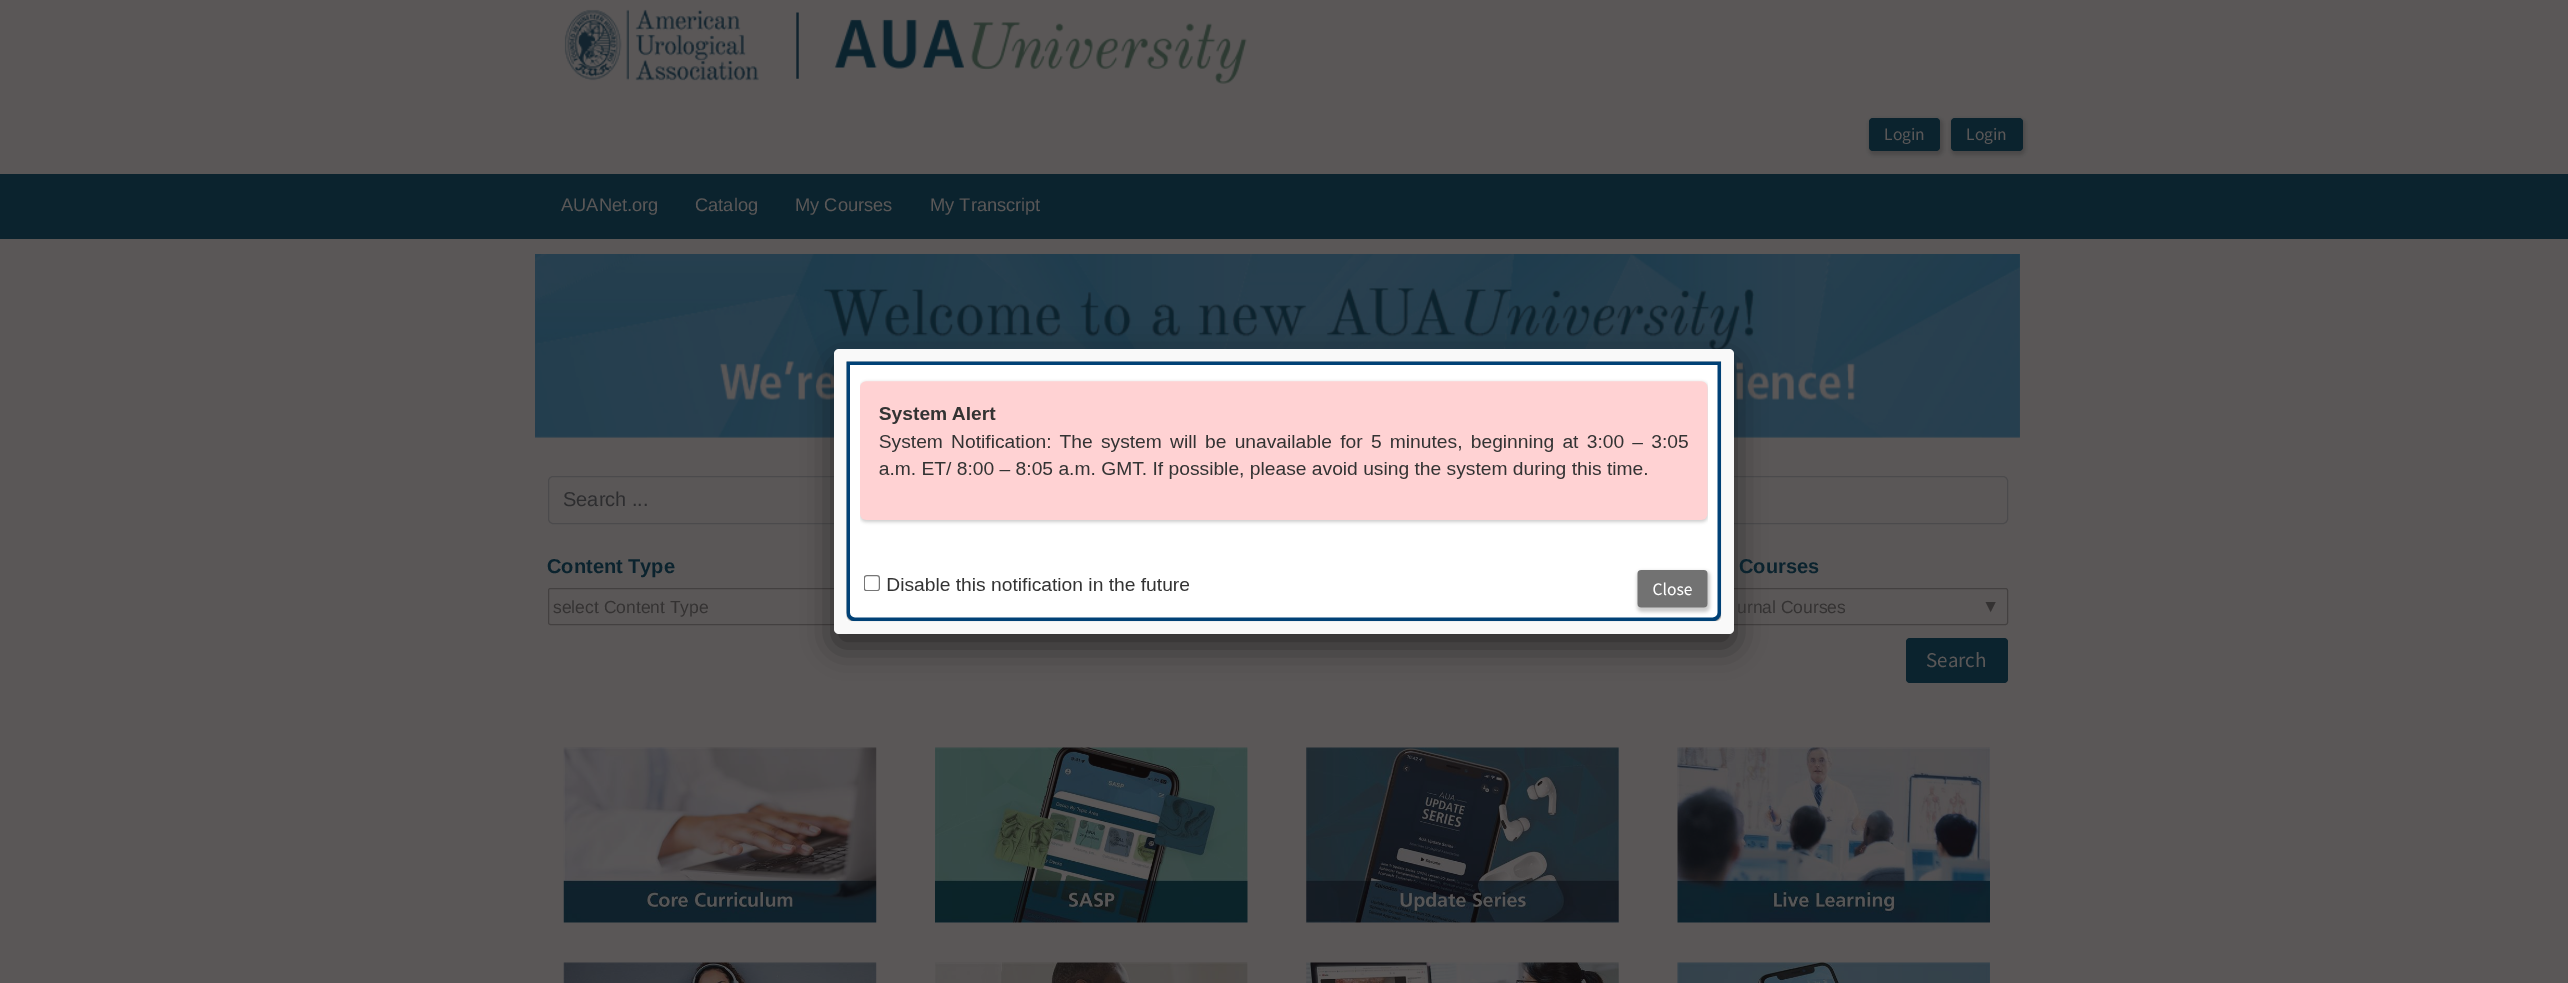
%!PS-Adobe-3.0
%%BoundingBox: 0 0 2568 983
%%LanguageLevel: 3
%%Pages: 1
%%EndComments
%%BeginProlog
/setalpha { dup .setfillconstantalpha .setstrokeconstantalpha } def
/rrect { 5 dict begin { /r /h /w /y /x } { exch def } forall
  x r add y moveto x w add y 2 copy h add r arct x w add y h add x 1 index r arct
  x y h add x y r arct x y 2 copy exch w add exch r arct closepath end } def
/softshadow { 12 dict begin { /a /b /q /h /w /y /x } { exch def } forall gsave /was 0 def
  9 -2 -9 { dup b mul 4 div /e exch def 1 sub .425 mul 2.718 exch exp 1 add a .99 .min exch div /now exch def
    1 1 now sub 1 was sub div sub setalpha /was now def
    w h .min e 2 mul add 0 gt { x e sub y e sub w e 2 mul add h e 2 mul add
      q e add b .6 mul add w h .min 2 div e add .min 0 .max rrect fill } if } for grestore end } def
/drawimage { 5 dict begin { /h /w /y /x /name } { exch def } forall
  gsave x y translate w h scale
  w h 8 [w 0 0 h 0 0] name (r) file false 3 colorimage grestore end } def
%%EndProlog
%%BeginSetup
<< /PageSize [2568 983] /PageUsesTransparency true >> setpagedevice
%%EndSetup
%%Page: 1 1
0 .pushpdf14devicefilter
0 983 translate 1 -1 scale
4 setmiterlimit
0.353 0.341 0.341 setrgbcolor
0 0 2568 983 rectfill
(images/1.raw) 564 9 683 75 drawimage
0.29 0.282 0.282 setrgbcolor
1869 119 74 36 5 2 1 softshadow
0.043 0.137 0.18 setrgbcolor
1869 118 71 33 4 rrect fill
0.29 0.282 0.282 setrgbcolor
1951 119 74 36 5 2 1 softshadow
0.043 0.137 0.18 setrgbcolor
1951 118 72 33 4 rrect fill
0 174 2568 65 rectfill
(images/2.raw) 535 254 1485 184 drawimage
0.294 0.29 0.298 setrgbcolor
548.5 476.5 1459 47 4.5 rrect stroke
0.263 0.251 0.251 setrgbcolor
548.5 588.5 344 36 2 rrect stroke
1661.5 588.5 346 36 2 rrect stroke
0.043 0.137 0.18 setrgbcolor
1906 638 102 45 4 rrect fill
(images/3.raw) 563 747 314 176 drawimage
(images/4.raw) 935 747 313 176 drawimage
(images/5.raw) 1306 747 313 176 drawimage
(images/6.raw) 1677 747 313 176 drawimage
(images/7.raw) 563 962 314 21 drawimage
(images/8.raw) 935 962 313 21 drawimage
(images/9.raw) 1306 962 313 21 drawimage
(images/10.raw) 1677 962 313 21 drawimage
0 setgray
834 361 900 285 5 15.5 0.5 softshadow
0.976 setgray
834 349 900 285 5 rrect fill
(images/11.raw) 846 361 876 261 drawimage
/SourceSansPro-Regular [17.5 0 0 -17.5 0 0] selectfont
0.353 0.341 0.341 setrgbcolor
1884 140 moveto (Login) show
1966 140 moveto (Login) show
/LiberationSans-Regular [18.25 0 0 -18.25 0 0] selectfont
561 211 moveto (AUANet.org) show
695 211 moveto (Catalog) show
795 211 moveto (My Courses) show
930 211 moveto (My Transcript) show
/LiberationSans-Regular [20 0 0 -20 0 0] selectfont
0.176 0.176 0.184 setrgbcolor
563 506 moveto (Search ...) show
/LiberationSans-Bold [20 0 0 -20 0 0] selectfont
0.043 0.137 0.18 setrgbcolor
547 573 moveto (Content Type) show
/LiberationSans-Regular [17.5 0 0 -17.5 0 0] selectfont
0.204 0.196 0.196 setrgbcolor
553 613 moveto (select Content Type) show
/LiberationSans-Bold [20 0 0 -20 0 0] selectfont
0.043 0.137 0.18 setrgbcolor
1739 573 moveto (Courses) show
/LiberationSans-Regular [17.5 0 0 -17.5 0 0] selectfont
0.204 0.196 0.196 setrgbcolor
1737 613 moveto (urnal Courses) show
1982 612 moveto (▼) show
/SourceSansPro-Regular [21 0 0 -21 0 0] selectfont
0.353 0.341 0.341 setrgbcolor
1926 667 moveto (Search) show
.poppdf14devicefilter showpage
%%EOF
